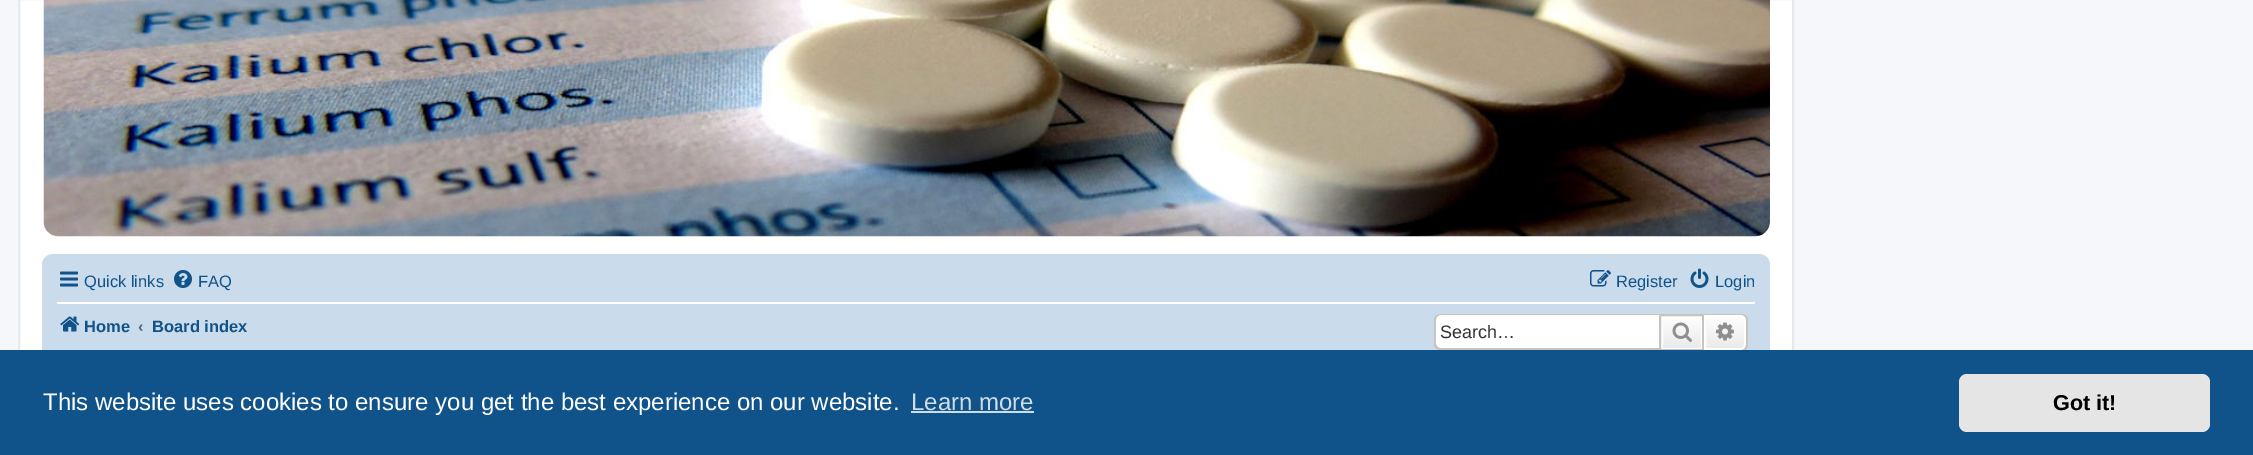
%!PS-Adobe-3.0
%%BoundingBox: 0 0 2253 455
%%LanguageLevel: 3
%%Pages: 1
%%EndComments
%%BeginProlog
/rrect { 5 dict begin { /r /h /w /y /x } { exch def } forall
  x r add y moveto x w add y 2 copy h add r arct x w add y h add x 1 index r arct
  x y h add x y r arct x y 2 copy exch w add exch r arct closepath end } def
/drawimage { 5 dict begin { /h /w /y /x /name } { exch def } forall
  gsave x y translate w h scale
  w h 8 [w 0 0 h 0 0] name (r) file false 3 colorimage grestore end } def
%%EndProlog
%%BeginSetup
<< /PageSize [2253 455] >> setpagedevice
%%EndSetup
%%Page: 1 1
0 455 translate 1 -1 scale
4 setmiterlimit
0.961 0.969 0.98 setrgbcolor
0 0 2253 455 rectfill
1 setgray
20 0 1772 350 rectfill
0.902 0.914 0.929 setrgbcolor
2 setlinewidth
19 -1 1774 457 rectstroke
(images/1.raw) 43 0 1727 237 drawimage
0.792 0.863 0.922 setrgbcolor
42 254 1728 114 11 rrect fill
(images/2.raw) 60 271 18 16 drawimage
(images/3.raw) 174 270 18 18 drawimage
(images/4.raw) 1590 270 21 17 drawimage
(images/5.raw) 1690 268 19 20 drawimage
1 setgray
57 302 1698 2 rectfill
(images/6.raw) 60 316 20 16 drawimage
newpath 1441 315 moveto 1659 315 lineto 1659 348 lineto 1441 348 lineto 1438 348 1436 346 1436 343 curveto 1436 320 lineto 1436 317 1438 315 1441 315 curveto closepath fill
0.78 0.765 0.749 setrgbcolor
newpath 1440 314 moveto 1659 314 lineto 1659 350 lineto 1440 350 lineto 1437 350 1434 347 1434 344 curveto 1434 320 lineto 1434 316 1437 314 1440 314 curveto closepath 1440 315 moveto 1659 315 lineto 1659 348 lineto 1440 348 lineto 1438 348 1436 346 1436 344 curveto 1436 320 lineto 1436 317 1438 315 1440 315 curveto closepath eofill
gsave newpath 1663 317 moveto 1701 317 lineto 1701 348 lineto 1663 348 lineto closepath clip newpath
<< /ShadingType 2 /ColorSpace /DeviceRGB /Coords [1682 315 1682 350] /Extend [true true] /Function << /FunctionType 2 /Domain [0 1] /C0 [1 1 1] /C1 [0.914 0.914 0.914] /N 1 >> >> shfill grestore
1 setgray
1662 316 40 33 rectstroke
0.78 0.765 0.749 setrgbcolor
1660 315 43 35 rectstroke
(images/7.raw) 1672 322 20 20 drawimage
gsave newpath 1705 316 moveto 1741 316 lineto 1743 316 1745 318 1745 320 curveto 1745 345 lineto 1745 347 1743 349 1741 349 curveto 1705 349 lineto closepath clip newpath
<< /ShadingType 2 /ColorSpace /DeviceRGB /Coords [1725 315 1725 350] /Extend [true true] /Function << /FunctionType 2 /Domain [0 1] /C0 [1 1 1] /C1 [0.914 0.914 0.914] /N 1 >> >> shfill grestore
1 setgray
newpath 1705 316 moveto 1741 316 lineto 1743 316 1745 318 1745 320 curveto 1745 345 lineto 1745 347 1743 349 1741 349 curveto 1705 349 lineto closepath stroke
0.78 0.765 0.749 setrgbcolor
newpath 1704 314 moveto 1742 314 lineto 1745 314 1748 316 1748 320 curveto 1748 345 lineto 1748 348 1745 351 1742 351 curveto 1704 351 lineto closepath 1704 315 moveto 1742 315 lineto 1744 315 1746 317 1746 320 curveto 1746 345 lineto 1746 347 1744 350 1742 350 curveto 1704 350 lineto closepath eofill
(images/8.raw) 1716 322 18 19 drawimage
0.059 0.325 0.541 setrgbcolor
0 350 2253 105 rectfill
0.812 0.867 0.91 setrgbcolor
911 411 123 2 rectfill
0.898 setgray
1959 374 251 58 8 rrect fill
/LiberationSans-Regular [16.5 0 0 -16.5 0 0] selectfont
0.063 0.322 0.537 setrgbcolor
84 287 moveto (Quick links) show
198 287 moveto (FAQ) show
1616 287 moveto (Register) show
1715 287 moveto (Login) show
/LiberationSans-Bold [16.5 0 0 -16.5 0 0] selectfont
84 332 moveto (Home) show
0.325 0.392 0.51 setrgbcolor
138 332 moveto (‹) show
0.063 0.322 0.537 setrgbcolor
152 332 moveto (Board index) show
/LiberationSans-Regular [18 0 0 -18 0 0] selectfont
0.2 setgray
1440 338 moveto (Search…) show
/LiberationSans-Regular [24 0 0 -24 0 0] selectfont
1 setgray
43 410 moveto (This website uses cookies to ensure you get the best experience on our website.) show
0.812 0.867 0.91 setrgbcolor
911 410 moveto (Learn more) show
/LiberationSans-Bold [21.5 0 0 -21.5 0 0] selectfont
0 setgray
2053 410 moveto (Got it!) show
showpage
%%EOF
